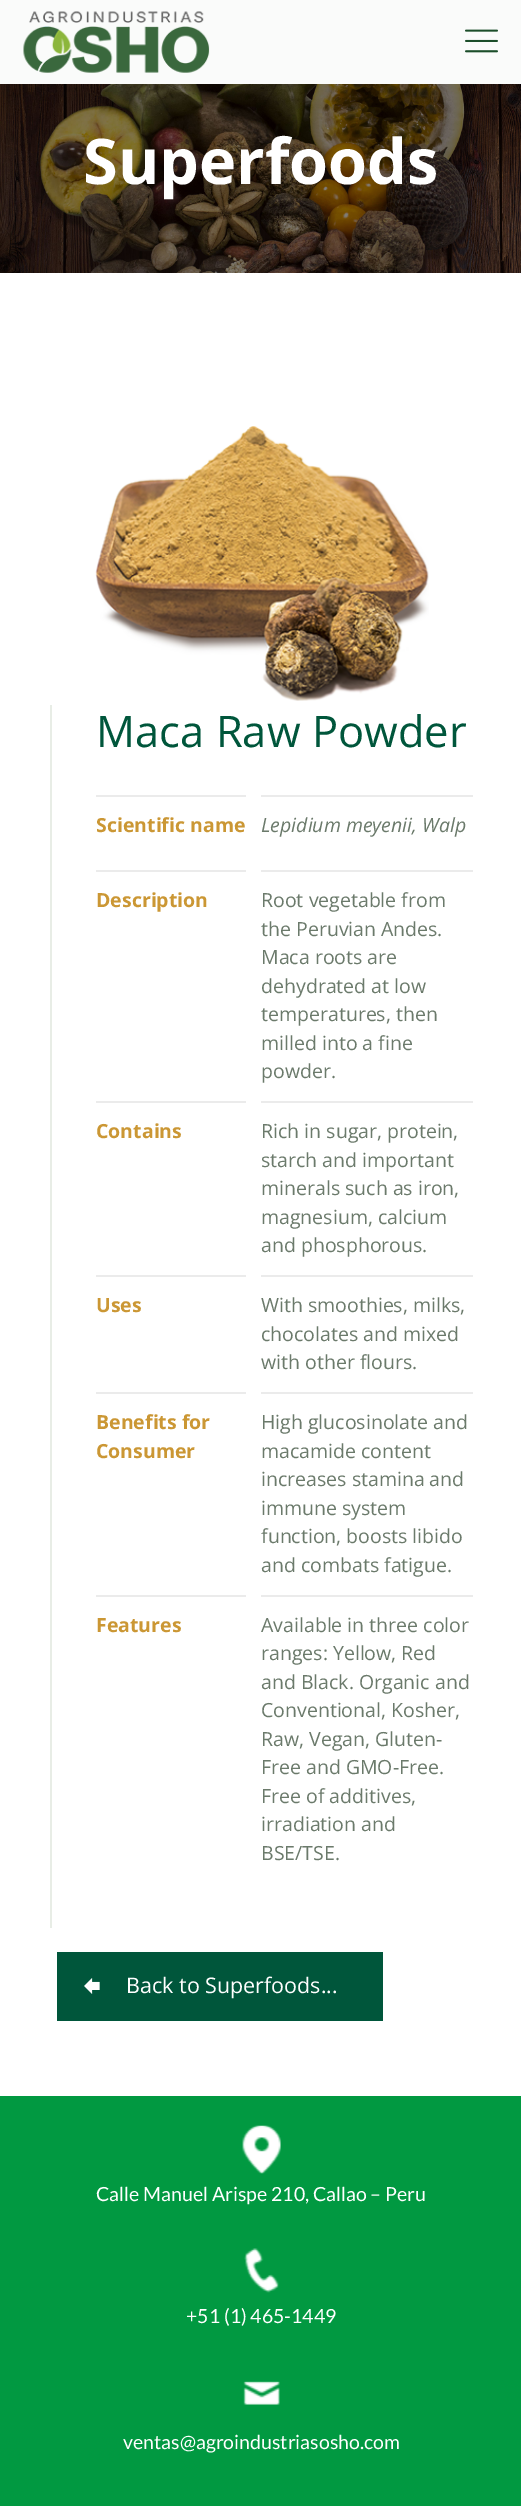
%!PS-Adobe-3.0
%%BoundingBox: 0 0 521 2506
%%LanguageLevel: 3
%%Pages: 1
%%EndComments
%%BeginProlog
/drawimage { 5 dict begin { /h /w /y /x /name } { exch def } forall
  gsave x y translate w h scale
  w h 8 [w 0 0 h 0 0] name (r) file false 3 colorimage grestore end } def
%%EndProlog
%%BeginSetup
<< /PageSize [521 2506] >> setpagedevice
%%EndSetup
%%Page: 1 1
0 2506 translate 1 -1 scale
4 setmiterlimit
0.98 0.984 0.98 setrgbcolor
0 0 521 2506 rectfill
(images/1.raw) 23 11 187 62 drawimage
(images/2.raw) 465 29 33 24 drawimage
(images/3.raw) 0 84 521 189 drawimage
1 setgray
0 273 521 1823 rectfill
(images/4.raw) 95 426 334 275 drawimage
0.91 0.929 0.902 setrgbcolor
50 705 2 1223 rectfill
0.922 setgray
96 795 150 2 rectfill
261 795 212 2 rectfill
96 870 150 2 rectfill
261 870 212 2 rectfill
96 1101 150 2 rectfill
261 1101 212 2 rectfill
96 1275 150 2 rectfill
261 1275 212 2 rectfill
96 1392 150 2 rectfill
261 1392 212 2 rectfill
96 1595 150 2 rectfill
261 1595 212 2 rectfill
0 0.337 0.231 setrgbcolor
57 1952 326 69 rectfill
(images/5.raw) 84 1978 16 16 drawimage
0.004 0.6 0.255 setrgbcolor
0 2096 521 410 rectfill
(images/6.raw) 242 2125 39 49 drawimage
(images/7.raw) 244 2248 35 45 drawimage
(images/8.raw) 243 2381 37 24 drawimage
/OpenSans-Bold [63 0 0 -63 0 0] selectfont
1 setgray
83 184 moveto (Superfoods) show
/OpenSans-Regular [43.5 0 0 -43.5 0 0] selectfont
0 0.337 0.231 setrgbcolor
96 747 moveto (Maca Raw Powder) show
/OpenSans-Bold [19.5 0 0 -19.5 0 0] selectfont
0.796 0.592 0.204 setrgbcolor
96 832 moveto (Scientific name) show
/OpenSans-Italic [19.5 0 0 -19.5 0 0] selectfont
0.42 0.478 0.42 setrgbcolor
261 832 moveto (Lepidium meyenii, Walp) show
/OpenSans-Bold [19.5 0 0 -19.5 0 0] selectfont
0.796 0.592 0.204 setrgbcolor
96 907 moveto (Description) show
/OpenSans-Regular [19.5 0 0 -19.5 0 0] selectfont
0.42 0.478 0.42 setrgbcolor
261 907 moveto (Root vegetable from) show
261 936 moveto (the Peruvian Andes.) show
261 964 moveto (Maca roots are) show
261 993 moveto (dehydrated at low) show
261 1021 moveto (temperatures, then) show
261 1050 moveto (milled into a fine) show
261 1078 moveto (powder.) show
/OpenSans-Bold [19.5 0 0 -19.5 0 0] selectfont
0.796 0.592 0.204 setrgbcolor
96 1138 moveto (Contains) show
/OpenSans-Regular [19.5 0 0 -19.5 0 0] selectfont
0.42 0.478 0.42 setrgbcolor
261 1138 moveto (Rich in sugar, protein,) show
261 1167 moveto (starch and important) show
261 1195 moveto (minerals such as iron,) show
261 1224 moveto (magnesium, calcium) show
261 1252 moveto (and phosphorous.) show
/OpenSans-Bold [19.5 0 0 -19.5 0 0] selectfont
0.796 0.592 0.204 setrgbcolor
96 1312 moveto (Uses) show
/OpenSans-Regular [19.5 0 0 -19.5 0 0] selectfont
0.42 0.478 0.42 setrgbcolor
261 1312 moveto (With smoothies, milks,) show
261 1341 moveto (chocolates and mixed) show
261 1369 moveto (with other flours.) show
/OpenSans-Bold [19.5 0 0 -19.5 0 0] selectfont
0.796 0.592 0.204 setrgbcolor
96 1429 moveto (Benefits for) show
96 1458 moveto (Consumer) show
/OpenSans-Regular [19.5 0 0 -19.5 0 0] selectfont
0.42 0.478 0.42 setrgbcolor
261 1429 moveto (High glucosinolate and) show
261 1458 moveto (macamide content) show
261 1486 moveto (increases stamina and) show
261 1515 moveto (immune system) show
261 1543 moveto (function, boosts libido) show
261 1572 moveto (and combats fatigue.) show
/OpenSans-Bold [19.5 0 0 -19.5 0 0] selectfont
0.796 0.592 0.204 setrgbcolor
96 1632 moveto (Features) show
/OpenSans-Regular [19.5 0 0 -19.5 0 0] selectfont
0.42 0.478 0.42 setrgbcolor
261 1632 moveto (Available in three color) show
261 1660 moveto (ranges: Yellow, Red) show
261 1689 moveto (and Black. Organic and) show
261 1717 moveto (Conventional, Kosher,) show
261 1746 moveto (Raw, Vegan, Gluten-) show
261 1774 moveto (Free and GMO-Free.) show
261 1803 moveto (Free of additives,) show
261 1831 moveto (irradiation and) show
261 1860 moveto (BSE/TSE.) show
/OpenSans-Regular [21.5 0 0 -21.5 0 0] selectfont
1 setgray
126 1993 moveto (Back to Superfoods...) show
/Lato-Regular [19.5 0 0 -19.5 0 0] selectfont
96 2201 moveto (Calle Manuel Arispe 210, Callao – Peru) show
186 2323 moveto (+51 \(1\) 465-1449) show
123 2449 moveto (ventas@agroindustriasosho.com) show
showpage
%%EOF
